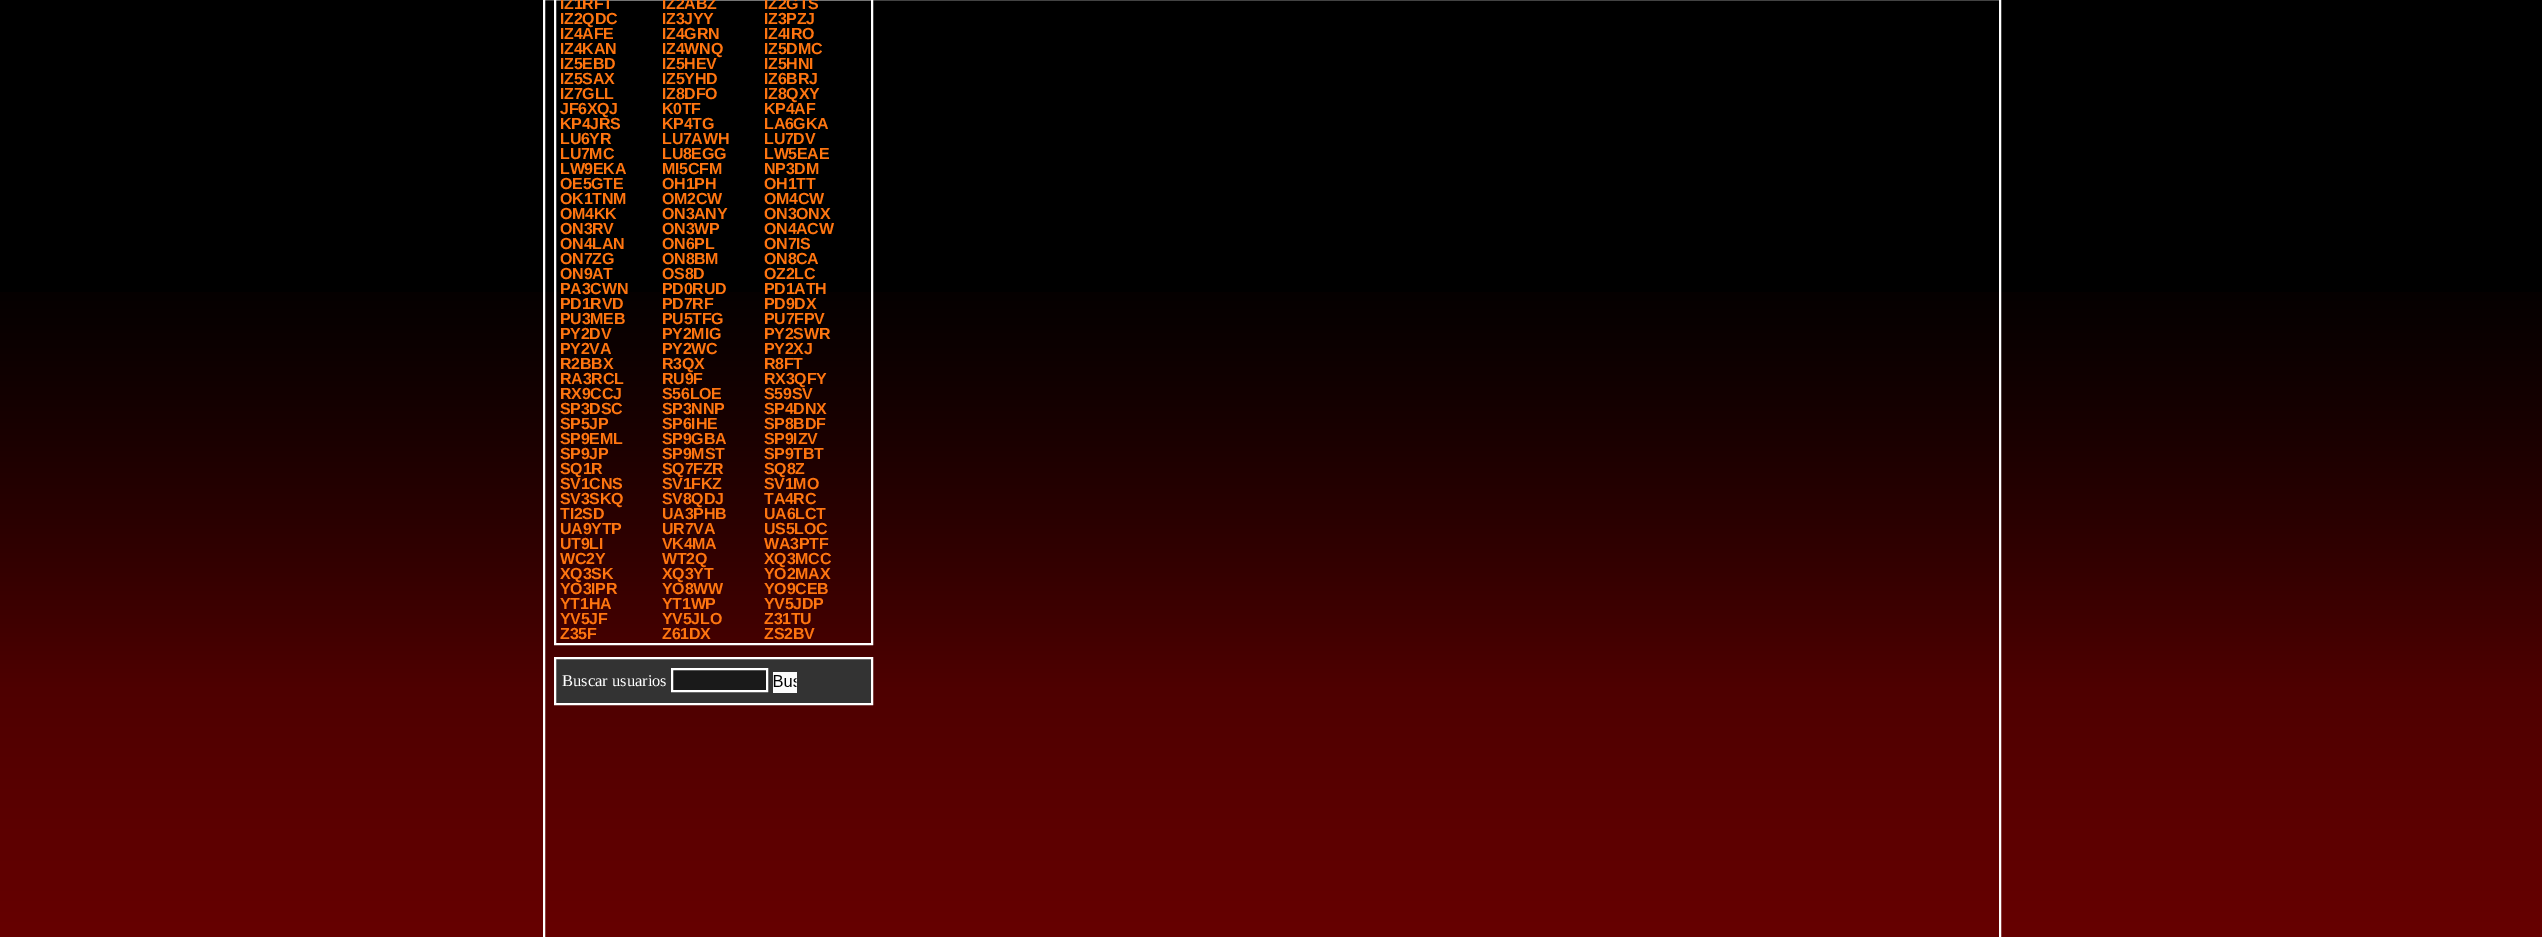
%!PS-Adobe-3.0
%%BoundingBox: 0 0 2542 937
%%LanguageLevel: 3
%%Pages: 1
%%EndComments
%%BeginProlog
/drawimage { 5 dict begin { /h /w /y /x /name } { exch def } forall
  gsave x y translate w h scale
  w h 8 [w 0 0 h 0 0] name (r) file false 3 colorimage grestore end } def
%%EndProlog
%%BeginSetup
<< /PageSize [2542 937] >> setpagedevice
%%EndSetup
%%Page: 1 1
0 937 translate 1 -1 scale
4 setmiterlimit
0 setgray
0 0 2542 937 rectfill
(images/1.raw) 0 292 2542 645 drawimage
1 setgray
2 setlinewidth
544 -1 1456 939 rectstroke
555 -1 317 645 rectstroke
0.2 setgray
newpath 555 658 moveto 872 658 lineto 872 704 lineto 555 704 lineto closepath gsave fill grestore
1 setgray
stroke
0.102 setgray
newpath 672 669 moveto 767 669 lineto 767 691 lineto 672 691 lineto closepath gsave fill grestore
1 setgray
stroke
0.988 setgray
773 672 24 21 rectfill
(images/2.raw) 773 675 24 12 drawimage
/LiberationSans-Bold [16 0 0 -16 0 0] selectfont
1 0.459 0.063 setrgbcolor
560 9 moveto -0.25 0 (IZ1RFT) ashow
662 9 moveto -0.25 0 (IZ2ABZ) ashow
764 9 moveto -0.25 0 (IZ2GTS) ashow
560 24 moveto -0.25 0 (IZ2QDC) ashow
662 24 moveto -0.25 0 (IZ3JYY) ashow
764 24 moveto -0.25 0 (IZ3PZJ) ashow
560 39 moveto -0.25 0 (IZ4AFE) ashow
662 39 moveto -0.25 0 (IZ4GRN) ashow
764 39 moveto -0.25 0 (IZ4IRO) ashow
560 54 moveto -0.25 0 (IZ4KAN) ashow
662 54 moveto -0.25 0 (IZ4WNQ) ashow
764 54 moveto -0.25 0 (IZ5DMC) ashow
560 69 moveto -0.25 0 (IZ5EBD) ashow
662 69 moveto -0.25 0 (IZ5HEV) ashow
764 69 moveto -0.25 0 (IZ5HNI) ashow
560 84 moveto -0.25 0 (IZ5SAX) ashow
662 84 moveto -0.25 0 (IZ5YHD) ashow
764 84 moveto -0.25 0 (IZ6BRJ) ashow
560 99 moveto -0.25 0 (IZ7GLL) ashow
662 99 moveto -0.25 0 (IZ8DFO) ashow
764 99 moveto -0.25 0 (IZ8QXY) ashow
560 114 moveto -0.25 0 (JF6XQJ) ashow
662 114 moveto -0.25 0 (K0TF) ashow
764 114 moveto -0.25 0 (KP4AF) ashow
560 129 moveto -0.25 0 (KP4JRS) ashow
662 129 moveto -0.25 0 (KP4TG) ashow
764 129 moveto -0.25 0 (LA6GKA) ashow
560 144 moveto -0.25 0 (LU6YR) ashow
662 144 moveto -0.25 0 (LU7AWH) ashow
764 144 moveto -0.25 0 (LU7DV) ashow
560 159 moveto -0.25 0 (LU7MC) ashow
662 159 moveto -0.25 0 (LU8EGG) ashow
764 159 moveto -0.25 0 (LW5EAE) ashow
560 174 moveto -0.25 0 (LW9EKA) ashow
662 174 moveto -0.25 0 (MI5CFM) ashow
764 174 moveto -0.25 0 (NP3DM) ashow
560 189 moveto -0.25 0 (OE5GTE) ashow
662 189 moveto -0.25 0 (OH1PH) ashow
764 189 moveto -0.25 0 (OH1TT) ashow
560 204 moveto -0.25 0 (OK1TNM) ashow
662 204 moveto -0.25 0 (OM2CW) ashow
764 204 moveto -0.25 0 (OM4CW) ashow
560 219 moveto -0.25 0 (OM4KK) ashow
662 219 moveto -0.25 0 (ON3ANY) ashow
764 219 moveto -0.25 0 (ON3ONX) ashow
560 234 moveto -0.25 0 (ON3RV) ashow
662 234 moveto -0.25 0 (ON3WP) ashow
764 234 moveto -0.25 0 (ON4ACW) ashow
560 249 moveto -0.25 0 (ON4LAN) ashow
662 249 moveto -0.25 0 (ON6PL) ashow
764 249 moveto -0.25 0 (ON7IS) ashow
560 264 moveto -0.25 0 (ON7ZG) ashow
662 264 moveto -0.25 0 (ON8BM) ashow
764 264 moveto -0.25 0 (ON8CA) ashow
560 279 moveto -0.25 0 (ON9AT) ashow
662 279 moveto -0.25 0 (OS8D) ashow
764 279 moveto -0.25 0 (OZ2LC) ashow
560 294 moveto -0.25 0 (PA3CWN) ashow
662 294 moveto -0.25 0 (PD0RUD) ashow
764 294 moveto -0.25 0 (PD1ATH) ashow
560 309 moveto -0.25 0 (PD1RVD) ashow
662 309 moveto -0.25 0 (PD7RF) ashow
764 309 moveto -0.25 0 (PD9DX) ashow
560 324 moveto -0.25 0 (PU3MEB) ashow
662 324 moveto -0.25 0 (PU5TFG) ashow
764 324 moveto -0.25 0 (PU7FPV) ashow
560 339 moveto -0.25 0 (PY2DV) ashow
662 339 moveto -0.25 0 (PY2MIG) ashow
764 339 moveto -0.25 0 (PY2SWR) ashow
560 354 moveto -0.25 0 (PY2VA) ashow
662 354 moveto -0.25 0 (PY2WC) ashow
764 354 moveto -0.25 0 (PY2XJ) ashow
560 369 moveto -0.25 0 (R2BBX) ashow
662 369 moveto -0.25 0 (R3QX) ashow
764 369 moveto -0.25 0 (R8FT) ashow
560 384 moveto -0.25 0 (RA3RCL) ashow
662 384 moveto -0.25 0 (RU9F) ashow
764 384 moveto -0.25 0 (RX3QFY) ashow
560 399 moveto -0.25 0 (RX9CCJ) ashow
662 399 moveto -0.25 0 (S56LOE) ashow
764 399 moveto -0.25 0 (S59SV) ashow
560 414 moveto -0.25 0 (SP3DSC) ashow
662 414 moveto -0.25 0 (SP3NNP) ashow
764 414 moveto -0.25 0 (SP4DNX) ashow
560 429 moveto -0.25 0 (SP5JP) ashow
662 429 moveto -0.25 0 (SP6IHE) ashow
764 429 moveto -0.25 0 (SP8BDF) ashow
560 444 moveto -0.25 0 (SP9EML) ashow
662 444 moveto -0.25 0 (SP9GBA) ashow
764 444 moveto -0.25 0 (SP9IZV) ashow
560 459 moveto -0.25 0 (SP9JP) ashow
662 459 moveto -0.25 0 (SP9MST) ashow
764 459 moveto -0.25 0 (SP9TBT) ashow
560 474 moveto -0.25 0 (SQ1R) ashow
662 474 moveto -0.25 0 (SQ7FZR) ashow
764 474 moveto -0.25 0 (SQ8Z) ashow
560 489 moveto -0.25 0 (SV1CNS) ashow
662 489 moveto -0.25 0 (SV1FKZ) ashow
764 489 moveto -0.25 0 (SV1MO) ashow
560 504 moveto -0.25 0 (SV3SKQ) ashow
662 504 moveto -0.25 0 (SV8QDJ) ashow
764 504 moveto -0.25 0 (TA4RC) ashow
560 519 moveto -0.25 0 (TI2SD) ashow
662 519 moveto -0.25 0 (UA3PHB) ashow
764 519 moveto -0.25 0 (UA6LCT) ashow
560 534 moveto -0.25 0 (UA9YTP) ashow
662 534 moveto -0.25 0 (UR7VA) ashow
764 534 moveto -0.25 0 (US5LOC) ashow
560 549 moveto -0.25 0 (UT9LI) ashow
662 549 moveto -0.25 0 (VK4MA) ashow
764 549 moveto -0.25 0 (WA3PTF) ashow
560 564 moveto -0.25 0 (WC2Y) ashow
662 564 moveto -0.25 0 (WT2Q) ashow
764 564 moveto -0.25 0 (XQ3MCC) ashow
560 579 moveto -0.25 0 (XQ3SK) ashow
662 579 moveto -0.25 0 (XQ3YT) ashow
764 579 moveto -0.25 0 (YO2MAX) ashow
560 594 moveto -0.25 0 (YO3IPR) ashow
662 594 moveto -0.25 0 (YO8WW) ashow
764 594 moveto -0.25 0 (YO9CEB) ashow
560 609 moveto -0.25 0 (YT1HA) ashow
662 609 moveto -0.25 0 (YT1WP) ashow
764 609 moveto -0.25 0 (YV5JDP) ashow
560 624 moveto -0.25 0 (YV5JF) ashow
662 624 moveto -0.25 0 (YV5JLO) ashow
764 624 moveto -0.25 0 (Z31TU) ashow
560 639 moveto -0.25 0 (Z35F) ashow
662 639 moveto -0.25 0 (Z61DX) ashow
764 639 moveto -0.25 0 (ZS2BV) ashow
/LiberationSerif-Regular [16.5 0 0 -16.5 0 0] selectfont
1 setgray
562 686 moveto (Buscar usuarios) show
showpage
%%EOF
